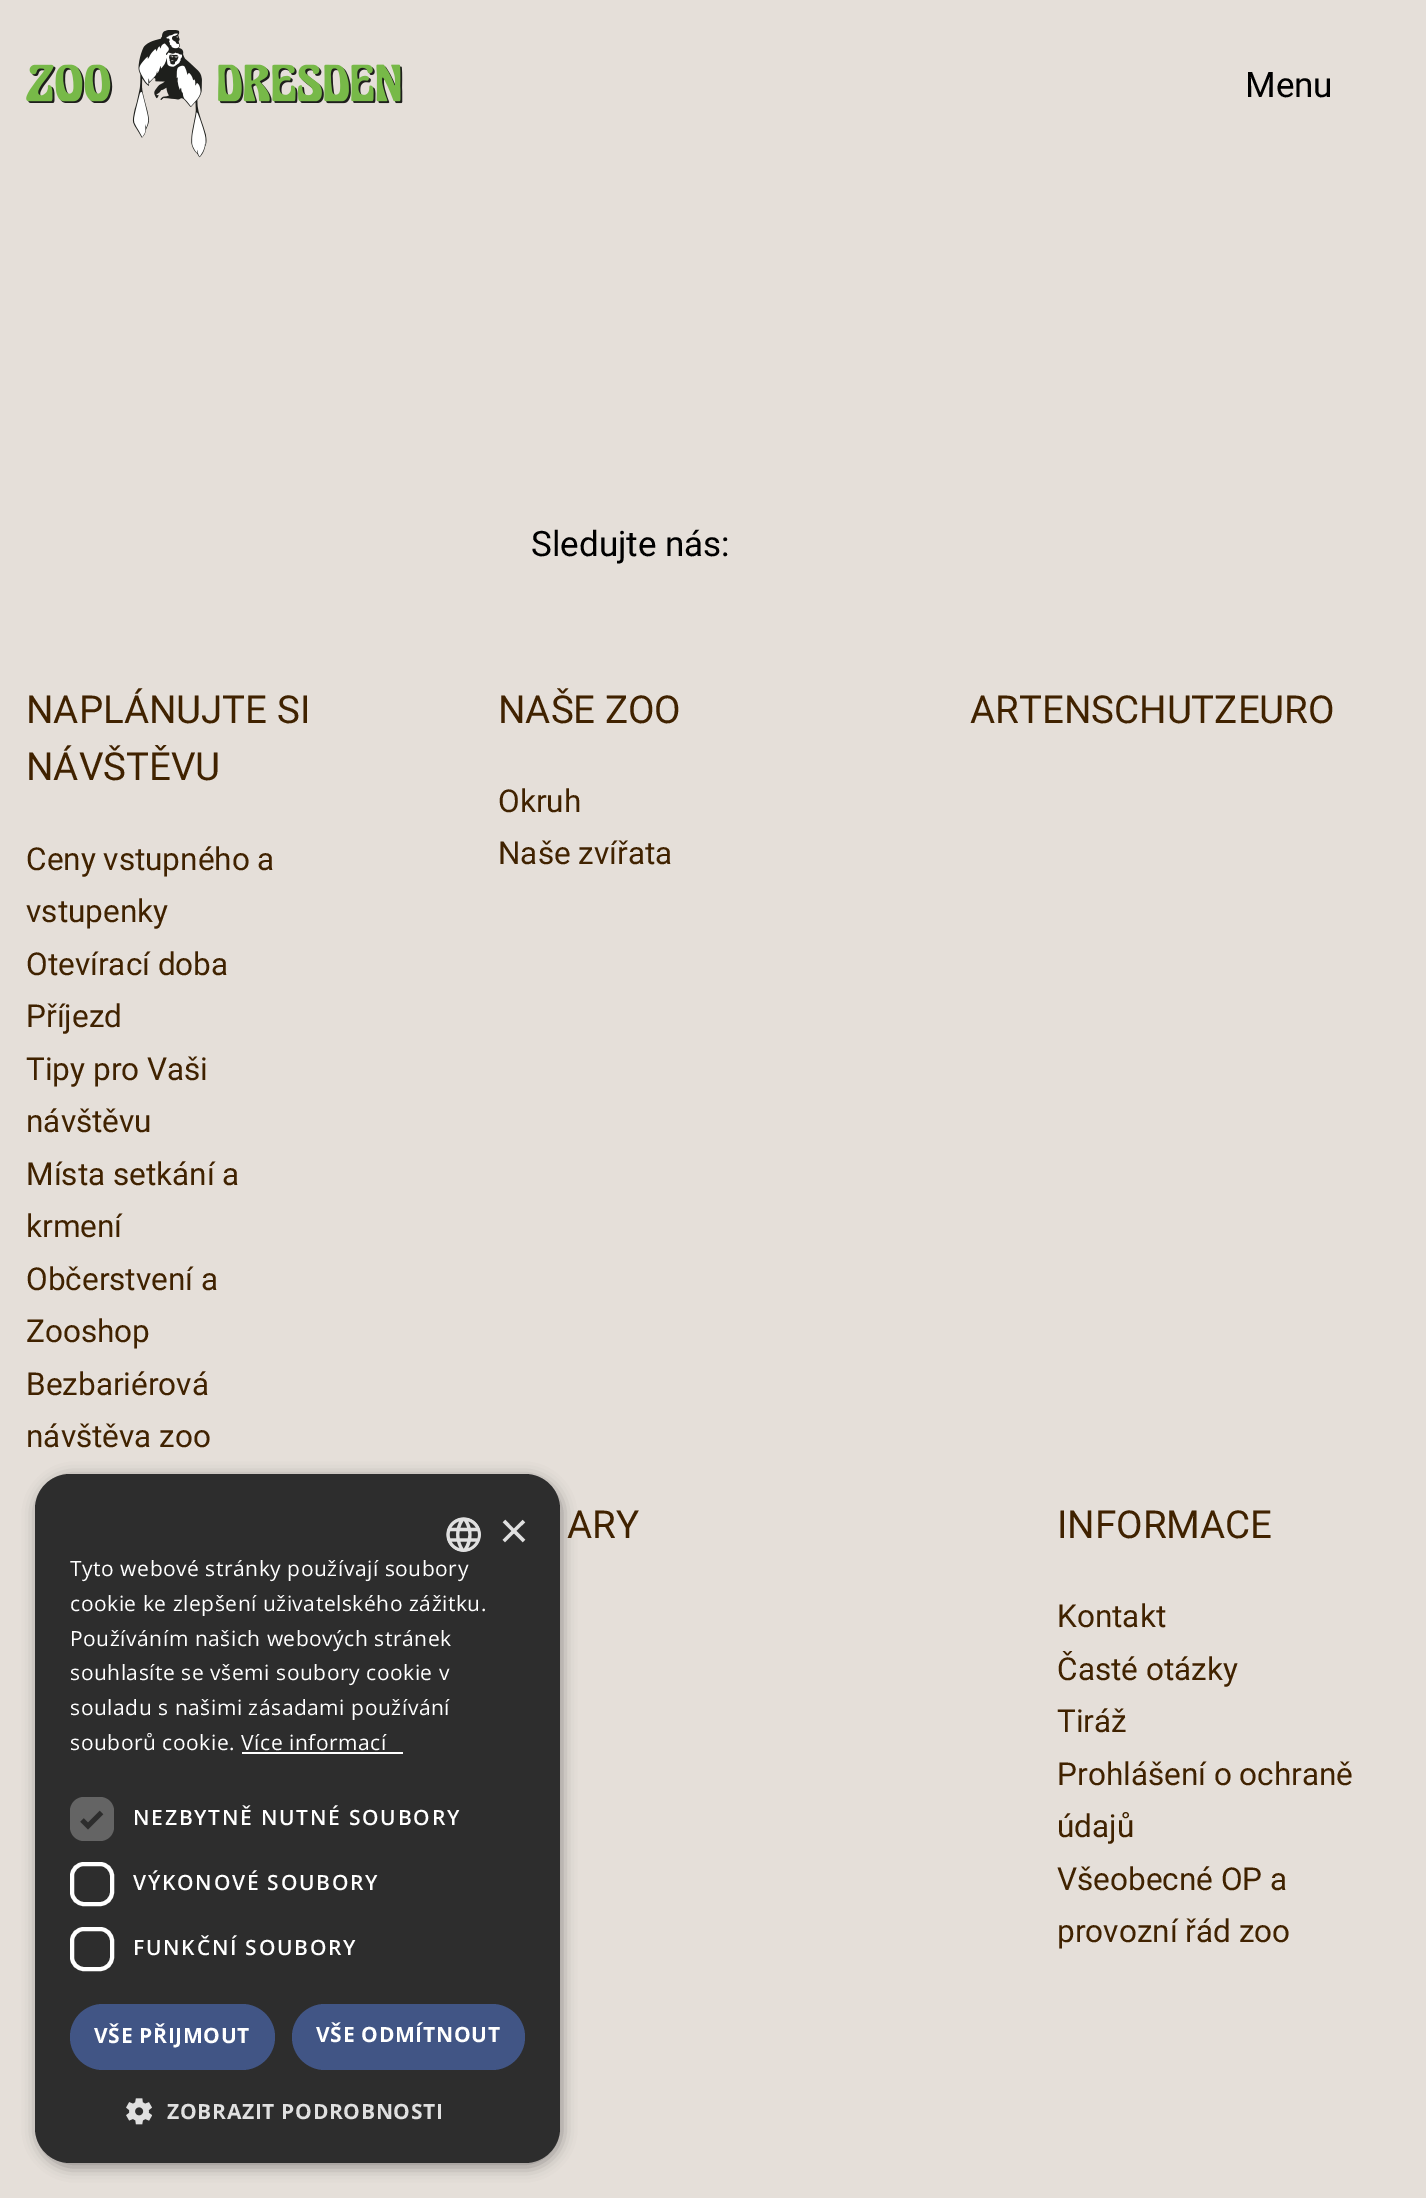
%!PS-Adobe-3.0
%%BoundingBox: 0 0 1426 2198
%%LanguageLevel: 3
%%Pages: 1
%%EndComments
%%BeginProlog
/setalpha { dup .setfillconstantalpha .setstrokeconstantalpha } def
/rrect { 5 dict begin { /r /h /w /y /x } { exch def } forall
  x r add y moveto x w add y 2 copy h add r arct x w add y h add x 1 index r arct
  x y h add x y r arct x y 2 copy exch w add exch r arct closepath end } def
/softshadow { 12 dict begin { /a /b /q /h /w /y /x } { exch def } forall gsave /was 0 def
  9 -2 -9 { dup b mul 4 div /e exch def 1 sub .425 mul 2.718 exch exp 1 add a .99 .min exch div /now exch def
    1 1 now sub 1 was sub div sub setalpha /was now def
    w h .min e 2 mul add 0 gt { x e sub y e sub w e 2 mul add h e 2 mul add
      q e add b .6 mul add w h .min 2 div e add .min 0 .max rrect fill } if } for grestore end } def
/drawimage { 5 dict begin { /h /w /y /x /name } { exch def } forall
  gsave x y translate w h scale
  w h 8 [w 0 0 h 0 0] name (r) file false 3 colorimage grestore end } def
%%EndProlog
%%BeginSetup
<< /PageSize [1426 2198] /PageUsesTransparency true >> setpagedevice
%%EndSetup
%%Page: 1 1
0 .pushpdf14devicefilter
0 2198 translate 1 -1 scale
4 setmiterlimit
0.898 0.875 0.851 setrgbcolor
0 0 1426 2198 rectfill
(images/1.raw) 26 30 377 128 drawimage
0 setgray
37 1477 525 690 35 7 0.35 softshadow
0.176 setgray
35 1474 525 689 35 rrect fill
(images/2.raw) 446 1517 35 35 drawimage
1 setgray
242 1752 161 2 rectfill
0.392 setgray
70 1797 44 44 14 rrect fill
0.176 setgray
4.6 setlinewidth
newpath 82 1820 moveto 88 1826 lineto 101.5 1812.5 lineto stroke
1 setgray
4 setlinewidth
72 1864 40 40 12 rrect stroke
72 1929 40 40 12 rrect stroke
0.255 0.333 0.522 setrgbcolor
70 2004 205 66 33 rrect fill
292 2004 233 66 33 rrect fill
(images/3.raw) 126 2098 26 27 drawimage
/Roboto-Regular [35 0 0 -35 0 0] selectfont
0 setgray
1245 97 moveto (Menu) show
531 556 moveto (Sledujte nás:) show
/Roboto-Regular [38.5 0 0 -38.5 0 0] selectfont
0.251 0.133 0 setrgbcolor
26 723 moveto (NAPLÁNUJTE SI) show
26 780 moveto (NÁVŠTĚVU) show
/Roboto-Regular [31.5 0 0 -31.5 0 0] selectfont
26 870 moveto (Ceny vstupného a) show
26 922 moveto (vstupenky) show
26 975 moveto (Otevírací doba) show
26 1027 moveto (Příjezd) show
26 1080 moveto (Tipy pro Vaši) show
26 1132 moveto (návštěvu) show
26 1185 moveto (Místa setkání a) show
26 1237 moveto (krmení) show
26 1290 moveto (Občerstvení a) show
26 1342 moveto (Zooshop) show
26 1395 moveto (Bezbariérová) show
26 1447 moveto (návštěva zoo) show
/Roboto-Regular [38.5 0 0 -38.5 0 0] selectfont
498 723 moveto (NAŠE ZOO) show
/Roboto-Regular [31.5 0 0 -31.5 0 0] selectfont
498 812 moveto (Okruh) show
498 864 moveto (Naše zvířata) show
/Roboto-Regular [38.5 0 0 -38.5 0 0] selectfont
970 723 moveto (ARTENSCHUTZEURO) show
567 1538 moveto (ARY) show
1057 1538 moveto (INFORMACE) show
/Roboto-Regular [31.5 0 0 -31.5 0 0] selectfont
1057 1627 moveto (Kontakt) show
1057 1680 moveto (Časté otázky) show
1057 1732 moveto (Tiráž) show
1057 1785 moveto (Prohlášení o ochraně) show
1057 1837 moveto (údajů) show
1057 1890 moveto (Všeobecné OP a) show
1057 1942 moveto (provozní řád zoo) show
/LiberationSans-Regular [51 0 0 -51 0 0] selectfont
0.878 setgray
499 1548 moveto (×) show
/OpenSans-Regular [21 0 0 -21 0 0] selectfont
1 setgray
70 1576 moveto 0.55 0 (Tyto webové stránky používají soubory) ashow
70 1611 moveto 0.55 0 (cookie ke zlepšení uživatelského zážitku.) ashow
70 1646 moveto 0.55 0 (Používáním našich webových stránek) ashow
70 1680 moveto 0.55 0 (souhlasíte se všemi soubory cookie v) ashow
70 1715 moveto 0.55 0 (souladu s našimi zásadami používání) ashow
70 1750 moveto 0.55 0 (souborů cookie. Více informací) ashow
/OpenSans-SemiBold [21 0 0 -21 0 0] selectfont
133 1825 moveto 1.75 0 (NEZBYTNĚ NUTNÉ SOUBORY) ashow
133 1890 moveto 1.75 0 (VÝKONOVÉ SOUBORY) ashow
133 1955 moveto 1.75 0 (FUNKČNÍ SOUBORY) ashow
/OpenSans-Bold [21 0 0 -21 0 0] selectfont
94 2043 moveto 0.7 0 (VŠE PŘIJMOUT) ashow
316 2042 moveto 0.7 0 (VŠE ODMÍTNOUT) ashow
0.878 setgray
167 2119 moveto 0.7 0 (ZOBRAZIT PODROBNOSTI) ashow
.poppdf14devicefilter showpage
%%EOF
